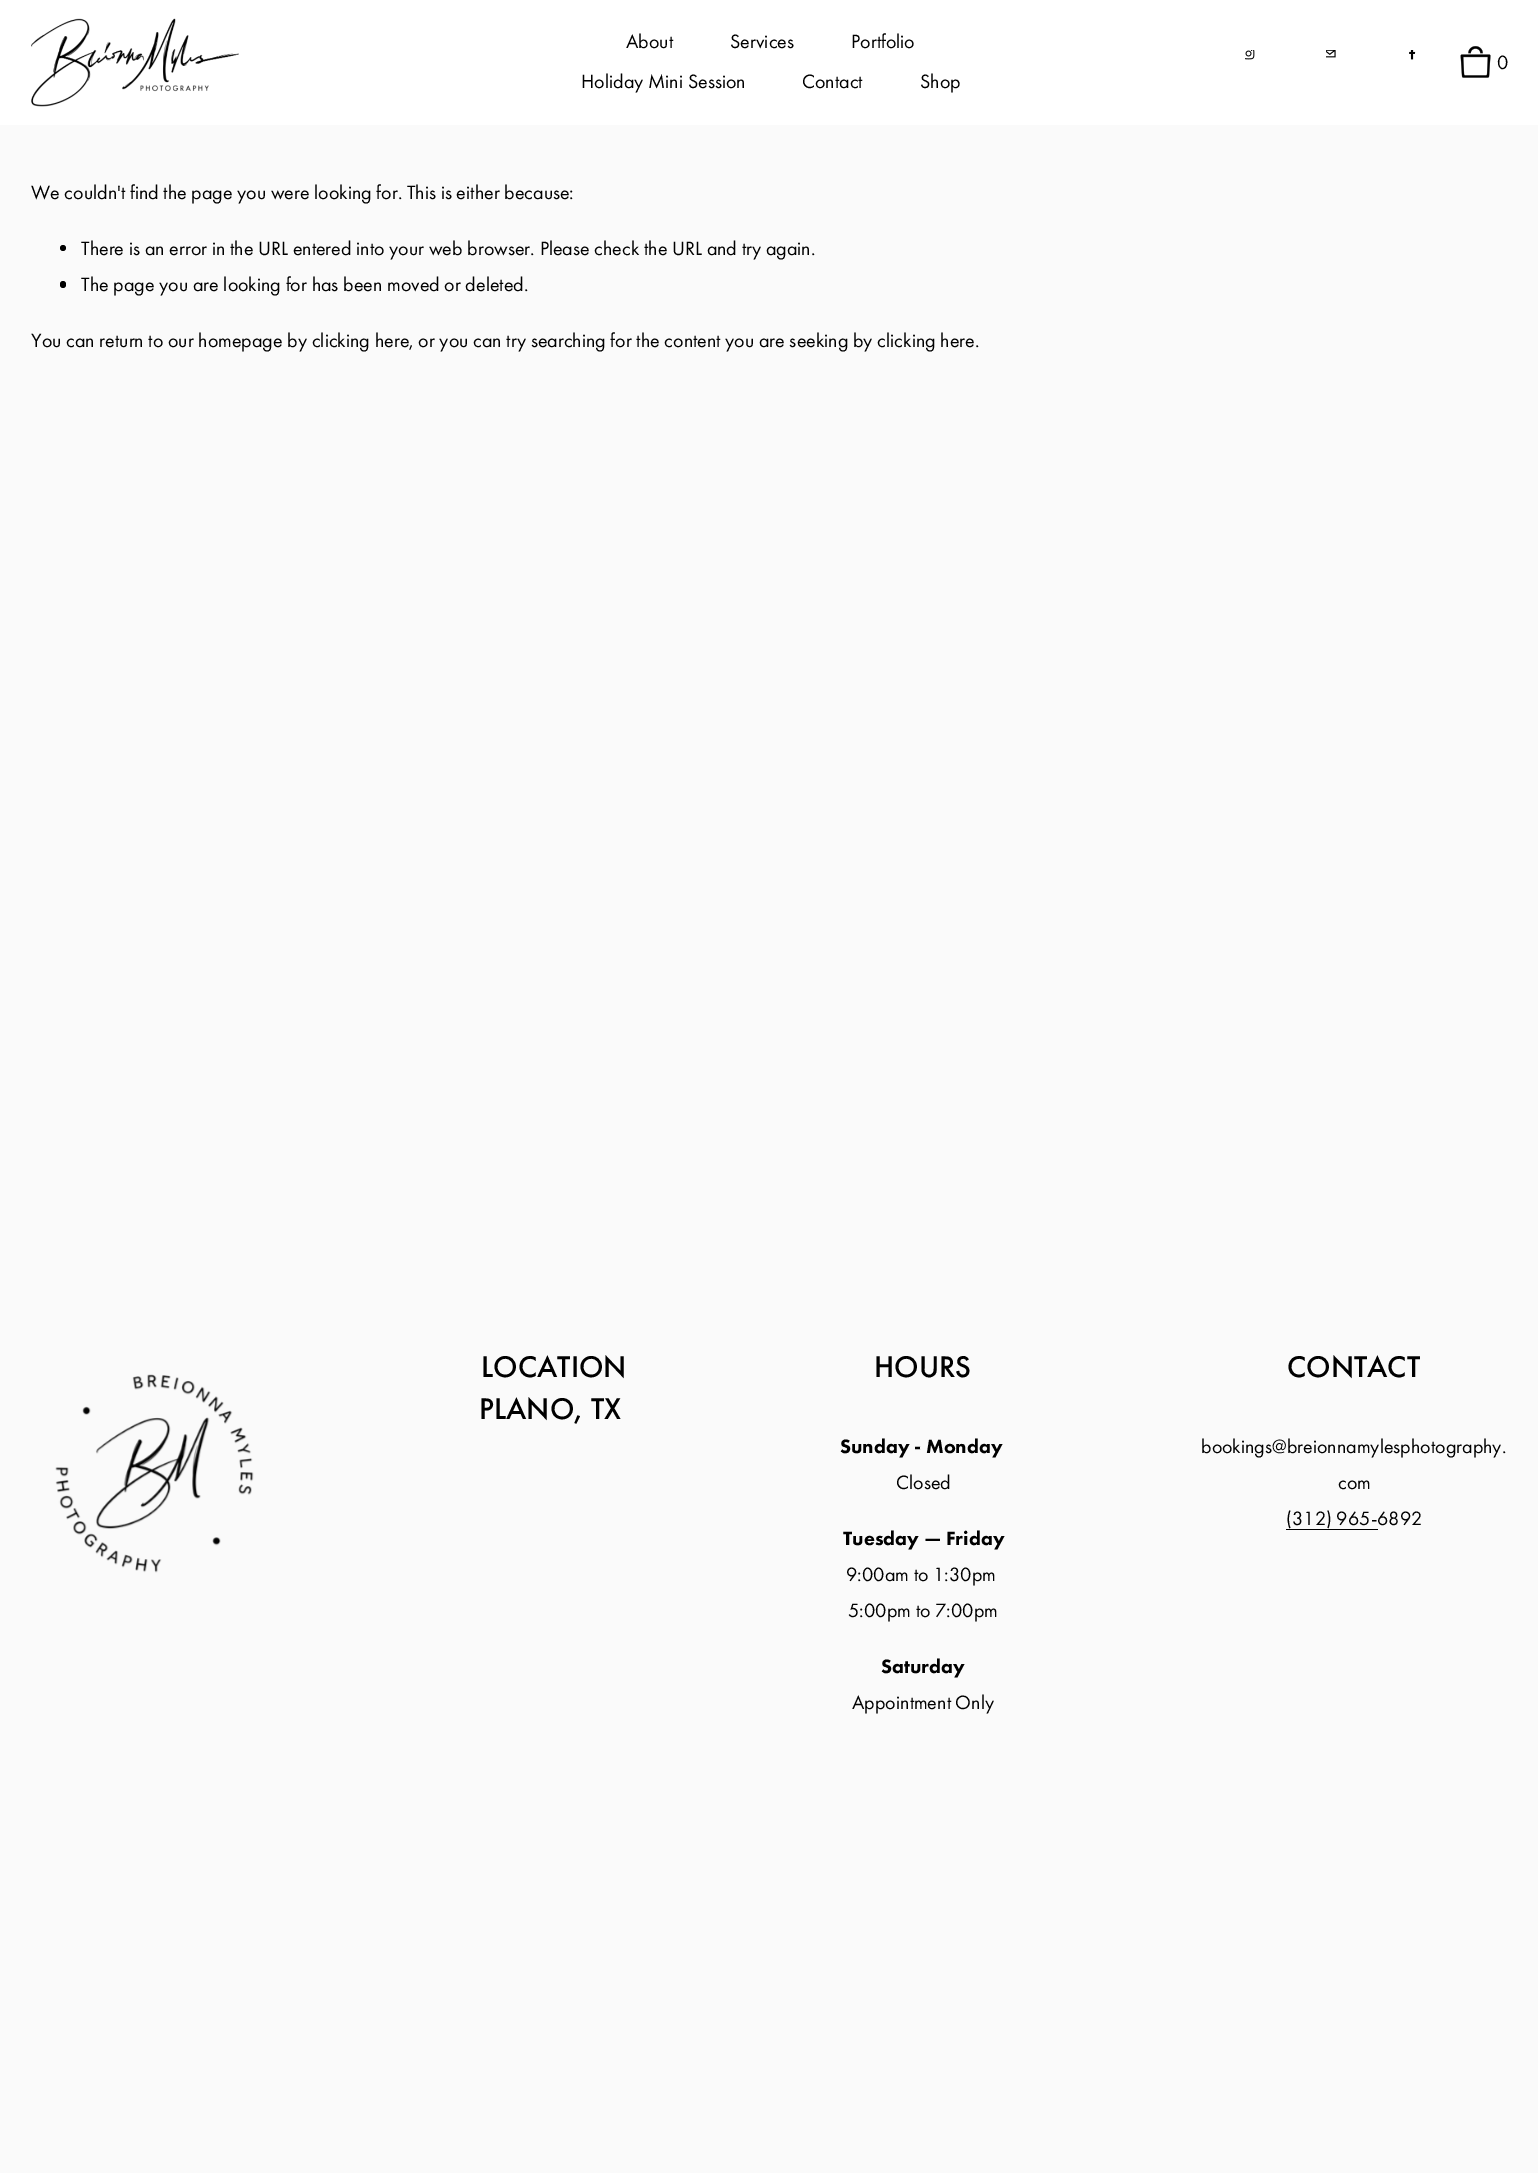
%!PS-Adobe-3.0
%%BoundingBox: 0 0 1538 2173
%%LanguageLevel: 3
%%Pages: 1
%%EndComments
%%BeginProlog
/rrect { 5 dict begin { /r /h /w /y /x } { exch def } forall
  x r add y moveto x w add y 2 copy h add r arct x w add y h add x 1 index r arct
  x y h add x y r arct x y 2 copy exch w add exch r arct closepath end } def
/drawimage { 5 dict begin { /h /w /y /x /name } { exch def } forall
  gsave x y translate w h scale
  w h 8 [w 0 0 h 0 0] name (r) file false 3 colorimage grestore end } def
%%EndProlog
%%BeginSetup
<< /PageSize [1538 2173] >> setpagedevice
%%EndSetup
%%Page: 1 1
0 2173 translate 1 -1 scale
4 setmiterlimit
0.98 setgray
0 0 1538 2173 rectfill
1 setgray
0 0 1538 125 rectfill
(images/1.raw) 31 18 208 89 drawimage
(images/2.raw) 1245 50 10 10 drawimage
(images/3.raw) 1326 50 10 8 drawimage
(images/4.raw) 1409 50 7 10 drawimage
(images/5.raw) 1460 46 31 32 drawimage
0 setgray
newpath 63 248 3 0 360 arc closepath fill
60 281 6 7 3 rrect fill
(images/6.raw) 55 1374 199 199 drawimage
1286 1529 92 1 rectfill
/FuturaPT-Regular [20 0 0 -20 0 0] selectfont
626 48 moveto (About) show
730 48 moveto (Services) show
851 48 moveto (Portfolio) show
581 88 moveto (Holiday Mini Session) show
802 88 moveto (Contact) show
920 88 moveto (Shop) show
1497 69 moveto (0) show
31 199 moveto (We couldn't find the page you were looking for. This is either because:) show
81 255 moveto (There is an error in the URL entered into your web browser. Please check the URL and try again.) show
81 291 moveto (The page you are looking for has been moved or deleted.) show
31 347 moveto (You can return to our homepage by clicking here, or you can try searching for the content you are seeking by clicking here.) show
/FuturaPT-Medium [31 0 0 -31 0 0] selectfont
481 1377 moveto (LOCATION) show
479 1419 moveto (PLANO, TX) show
874 1377 moveto (HOURS) show
/FuturaPT-Black [20 0 0 -20 0 0] selectfont
840 1453 moveto (Sunday - Monday) show
/FuturaPT-Regular [20 0 0 -20 0 0] selectfont
896 1489 moveto (Closed) show
/FuturaPT-Black [20 0 0 -20 0 0] selectfont
843 1545 moveto (Tuesday — Friday) show
/FuturaPT-Regular [20 0 0 -20 0 0] selectfont
846 1581 moveto (9:00am to 1:30pm) show
848 1617 moveto (5:00pm to 7:00pm) show
/FuturaPT-Black [20 0 0 -20 0 0] selectfont
881 1673 moveto (Saturday) show
/FuturaPT-Regular [20 0 0 -20 0 0] selectfont
852 1709 moveto (Appointment Only) show
/FuturaPT-Medium [31 0 0 -31 0 0] selectfont
1287 1377 moveto (CONTACT) show
/FuturaPT-Regular [20 0 0 -20 0 0] selectfont
1201 1453 moveto (bookings@breionnamylesphotography.) show
1338 1489 moveto (com) show
1286 1525 moveto (\(312\) 965-6892) show
showpage
%%EOF
